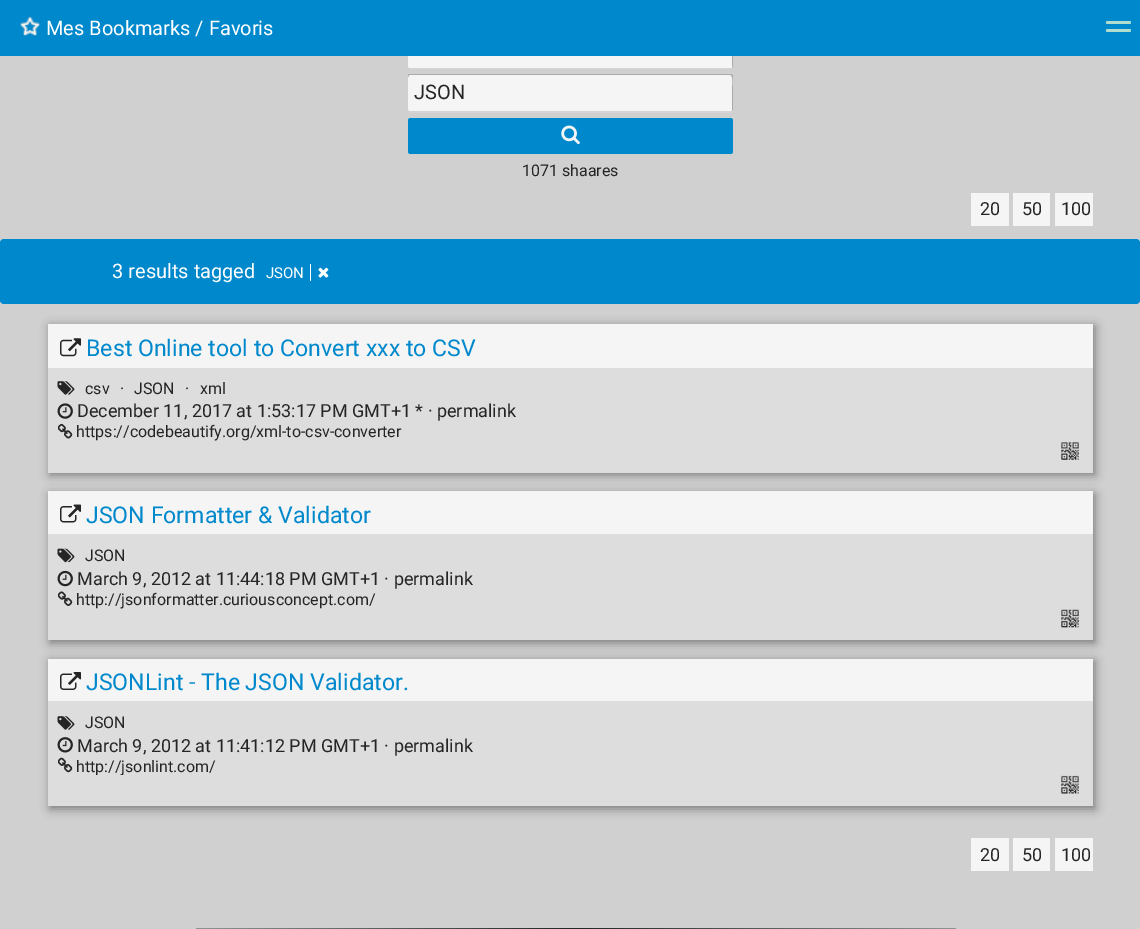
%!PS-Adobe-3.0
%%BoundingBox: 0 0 1140 929
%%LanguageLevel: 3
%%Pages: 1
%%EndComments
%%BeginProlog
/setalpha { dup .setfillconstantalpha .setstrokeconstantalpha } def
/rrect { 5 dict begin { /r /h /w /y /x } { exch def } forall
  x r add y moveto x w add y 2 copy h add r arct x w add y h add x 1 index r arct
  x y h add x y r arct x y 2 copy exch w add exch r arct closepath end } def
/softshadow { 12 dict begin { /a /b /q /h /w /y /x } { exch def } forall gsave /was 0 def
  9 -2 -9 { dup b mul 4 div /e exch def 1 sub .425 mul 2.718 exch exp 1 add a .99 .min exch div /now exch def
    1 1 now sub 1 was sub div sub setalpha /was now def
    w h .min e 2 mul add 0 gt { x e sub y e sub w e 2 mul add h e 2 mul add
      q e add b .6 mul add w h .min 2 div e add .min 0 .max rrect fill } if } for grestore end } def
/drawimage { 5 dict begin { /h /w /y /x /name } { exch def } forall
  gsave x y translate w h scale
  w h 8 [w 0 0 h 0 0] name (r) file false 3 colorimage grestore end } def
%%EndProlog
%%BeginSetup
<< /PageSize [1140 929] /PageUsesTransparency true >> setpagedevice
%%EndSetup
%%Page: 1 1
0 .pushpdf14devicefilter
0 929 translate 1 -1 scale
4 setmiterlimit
0.816 setgray
0 0 1140 929 rectfill
0.831 setgray
newpath 408 66 moveto 408 68 409 69 410 69 curveto 730 69 lineto 732 69 733 68 733 66 curveto 733 34 lineto 732 32 lineto 732 65 lineto 732 66 731 68 730 68 curveto 410 68 lineto 409 68 408 67 408 66 curveto closepath fill
0.961 setgray
408 30 325 38 2.5 rrect fill
0.3 setalpha
0 setgray
newpath 410 31 moveto 730 31 lineto 734 31 732 43 732 45 curveto 732 68 lineto 733 66 lineto 733 32 lineto 733 31 732 30 730 30 curveto 410 30 lineto 408 30 408 32 408 34 curveto 408 32 409 31 410 31 curveto closepath fill
1 setalpha
0 0.533 0.8 setrgbcolor
0 0 1140 56 rectfill
(images/1.raw) 20 16 20 20 drawimage
0.69 0.867 0.808 setrgbcolor
1106 21 25 3 1.5 rrect fill
1106 29 25 3 1.5 rrect fill
0.831 setgray
newpath 408 110 moveto 408 112 409 113 410 113 curveto 730 113 lineto 732 113 733 112 733 110 curveto 733 78 lineto 732 76 lineto 732 109 lineto 732 110 731 111 730 111 curveto 410 111 lineto 409 111 408 111 408 110 curveto closepath fill
0.961 setgray
408 74 325 37 2.5 rrect fill
0.3 setalpha
0 setgray
newpath 410 75 moveto 730 75 lineto 734 75 732 87 732 89 curveto 732 111 lineto 733 110 733 109 733 108 curveto 733 76 lineto 733 75 732 74 730 74 curveto 410 74 lineto 409 74 408 75 408 76 curveto 408 78 lineto 408 76 409 75 410 75 curveto closepath fill
1 setalpha
0 0.533 0.8 setrgbcolor
408 118 325 36 2.5 rrect fill
(images/2.raw) 561 125 19 20 drawimage
0.961 setgray
971 193 38 33 rectfill
1013 193 37 33 rectfill
1055 193 38 33 rectfill
0 0.533 0.8 setrgbcolor
0 239 1140 65 4 rrect fill
1 setgray
310 264 1 17 rectfill
(images/3.raw) 318 267 11 11 drawimage
0.475 setgray
50 326 1045 149 0 5 1 softshadow
0.961 setgray
48 324 1045 44 rectfill
(images/4.raw) 60 338 21 19 drawimage
0.867 setgray
48 368 1045 105 rectfill
(images/5.raw) 57 381 18 14 drawimage
(images/6.raw) 57 403 16 16 drawimage
(images/7.raw) 58 423 15 16 drawimage
(images/8.raw) 1061 442 18 18 drawimage
0.475 setgray
50 494 1045 149 0 5 1 softshadow
0.961 setgray
48 491 1045 43 rectfill
(images/9.raw) 60 504 21 19 drawimage
0.867 setgray
48 534 1045 106 rectfill
(images/10.raw) 57 548 18 15 drawimage
(images/11.raw) 57 570 16 17 drawimage
(images/12.raw) 58 591 15 15 drawimage
(images/13.raw) 1061 609 18 19 drawimage
0.475 setgray
50 661 1045 148 0 5 1 softshadow
0.961 setgray
48 659 1045 42 rectfill
(images/14.raw) 60 672 21 18 drawimage
0.867 setgray
48 701 1045 105 rectfill
(images/5.raw) 57 716 18 14 drawimage
(images/15.raw) 57 737 16 16 drawimage
(images/16.raw) 58 757 15 16 drawimage
(images/17.raw) 1061 775 18 19 drawimage
0.961 setgray
971 838 38 33 rectfill
1013 838 37 33 rectfill
1055 838 38 33 rectfill
gsave newpath 196 928 moveto 956 928 lineto 956 929 lineto 196 929 lineto closepath clip newpath
<< /ShadingType 2 /ColorSpace /DeviceRGB /Coords [196 928 956 928] /Extend [true true] /Function << /FunctionType 3 /Domain [0 1] /Functions [<< /FunctionType 2 /Domain [0 1] /C0 [0.58 0.576 0.576] /C1 [0.145 0.145 0.145] /N 1 >> << /FunctionType 2 /Domain [0 1] /C0 [0.145 0.145 0.145] /C1 [0.58 0.576 0.576] /N 1 >>] /Bounds [0.5] /Encode [0 1 0 1] >> >> shfill grestore
/Roboto-Regular [20 0 0 -20 0 0] selectfont
1 setgray
46 35 moveto (Mes Bookmarks / Favoris) show
0.145 setgray
414 99 moveto (JSON) show
/Roboto-Regular [16 0 0 -16 0 0] selectfont
522 176 moveto (1071 shaares) show
/Roboto-Regular [18 0 0 -18 0 0] selectfont
980 215 moveto (20) show
1022 215 moveto (50) show
1061 215 moveto (100) show
/Roboto-Regular [20 0 0 -20 0 0] selectfont
1 setgray
112 278 moveto (3 results tagged) show
/Roboto-Regular [15 0 0 -15 0 0] selectfont
266 278 moveto (JSON) show
/Roboto-Regular [23.1 0 0 -23.1 0 0] selectfont
0 0.533 0.8 setrgbcolor
86 356 moveto (Best Online tool to Convert xxx to CSV) show
/Roboto-Regular [16 0 0 -16 0 0] selectfont
0.145 setgray
85 394 moveto (csv) show
120 394 moveto (·) show
134 394 moveto (JSON) show
185 394 moveto (·) show
200 394 moveto (xml) show
/Roboto-Regular [18 0 0 -18 0 0] selectfont
77 417 moveto (December 11, 2017 at 1:53:17 PM GMT+1 * · permalink) show
/Roboto-Regular [16 0 0 -16 0 0] selectfont
76 437 moveto (https://codebeautify.org/xml-to-csv-converter) show
/Roboto-Regular [23.1 0 0 -23.1 0 0] selectfont
0 0.533 0.8 setrgbcolor
86 523 moveto (JSON Formatter & Validator) show
/Roboto-Regular [16 0 0 -16 0 0] selectfont
0.145 setgray
85 561 moveto (JSON) show
/Roboto-Regular [18 0 0 -18 0 0] selectfont
77 585 moveto (March 9, 2012 at 11:44:18 PM GMT+1 · permalink) show
/Roboto-Regular [16 0 0 -16 0 0] selectfont
76 605 moveto (http://jsonformatter.curiousconcept.com/) show
/Roboto-Regular [23.1 0 0 -23.1 0 0] selectfont
0 0.533 0.8 setrgbcolor
86 690 moveto (JSONLint - The JSON Validator.) show
/Roboto-Regular [16 0 0 -16 0 0] selectfont
0.145 setgray
85 728 moveto (JSON) show
/Roboto-Regular [18 0 0 -18 0 0] selectfont
77 752 moveto (March 9, 2012 at 11:41:12 PM GMT+1 · permalink) show
gsave
58 756 1025 19 rectclip
/Roboto-Regular [16 0 0 -16 0 0] selectfont
76 772 moveto (http://jsonlint.com/) show
grestore
980 861 moveto (20) show
1022 861 moveto (50) show
1061 861 moveto (100) show
.poppdf14devicefilter showpage
%%EOF
